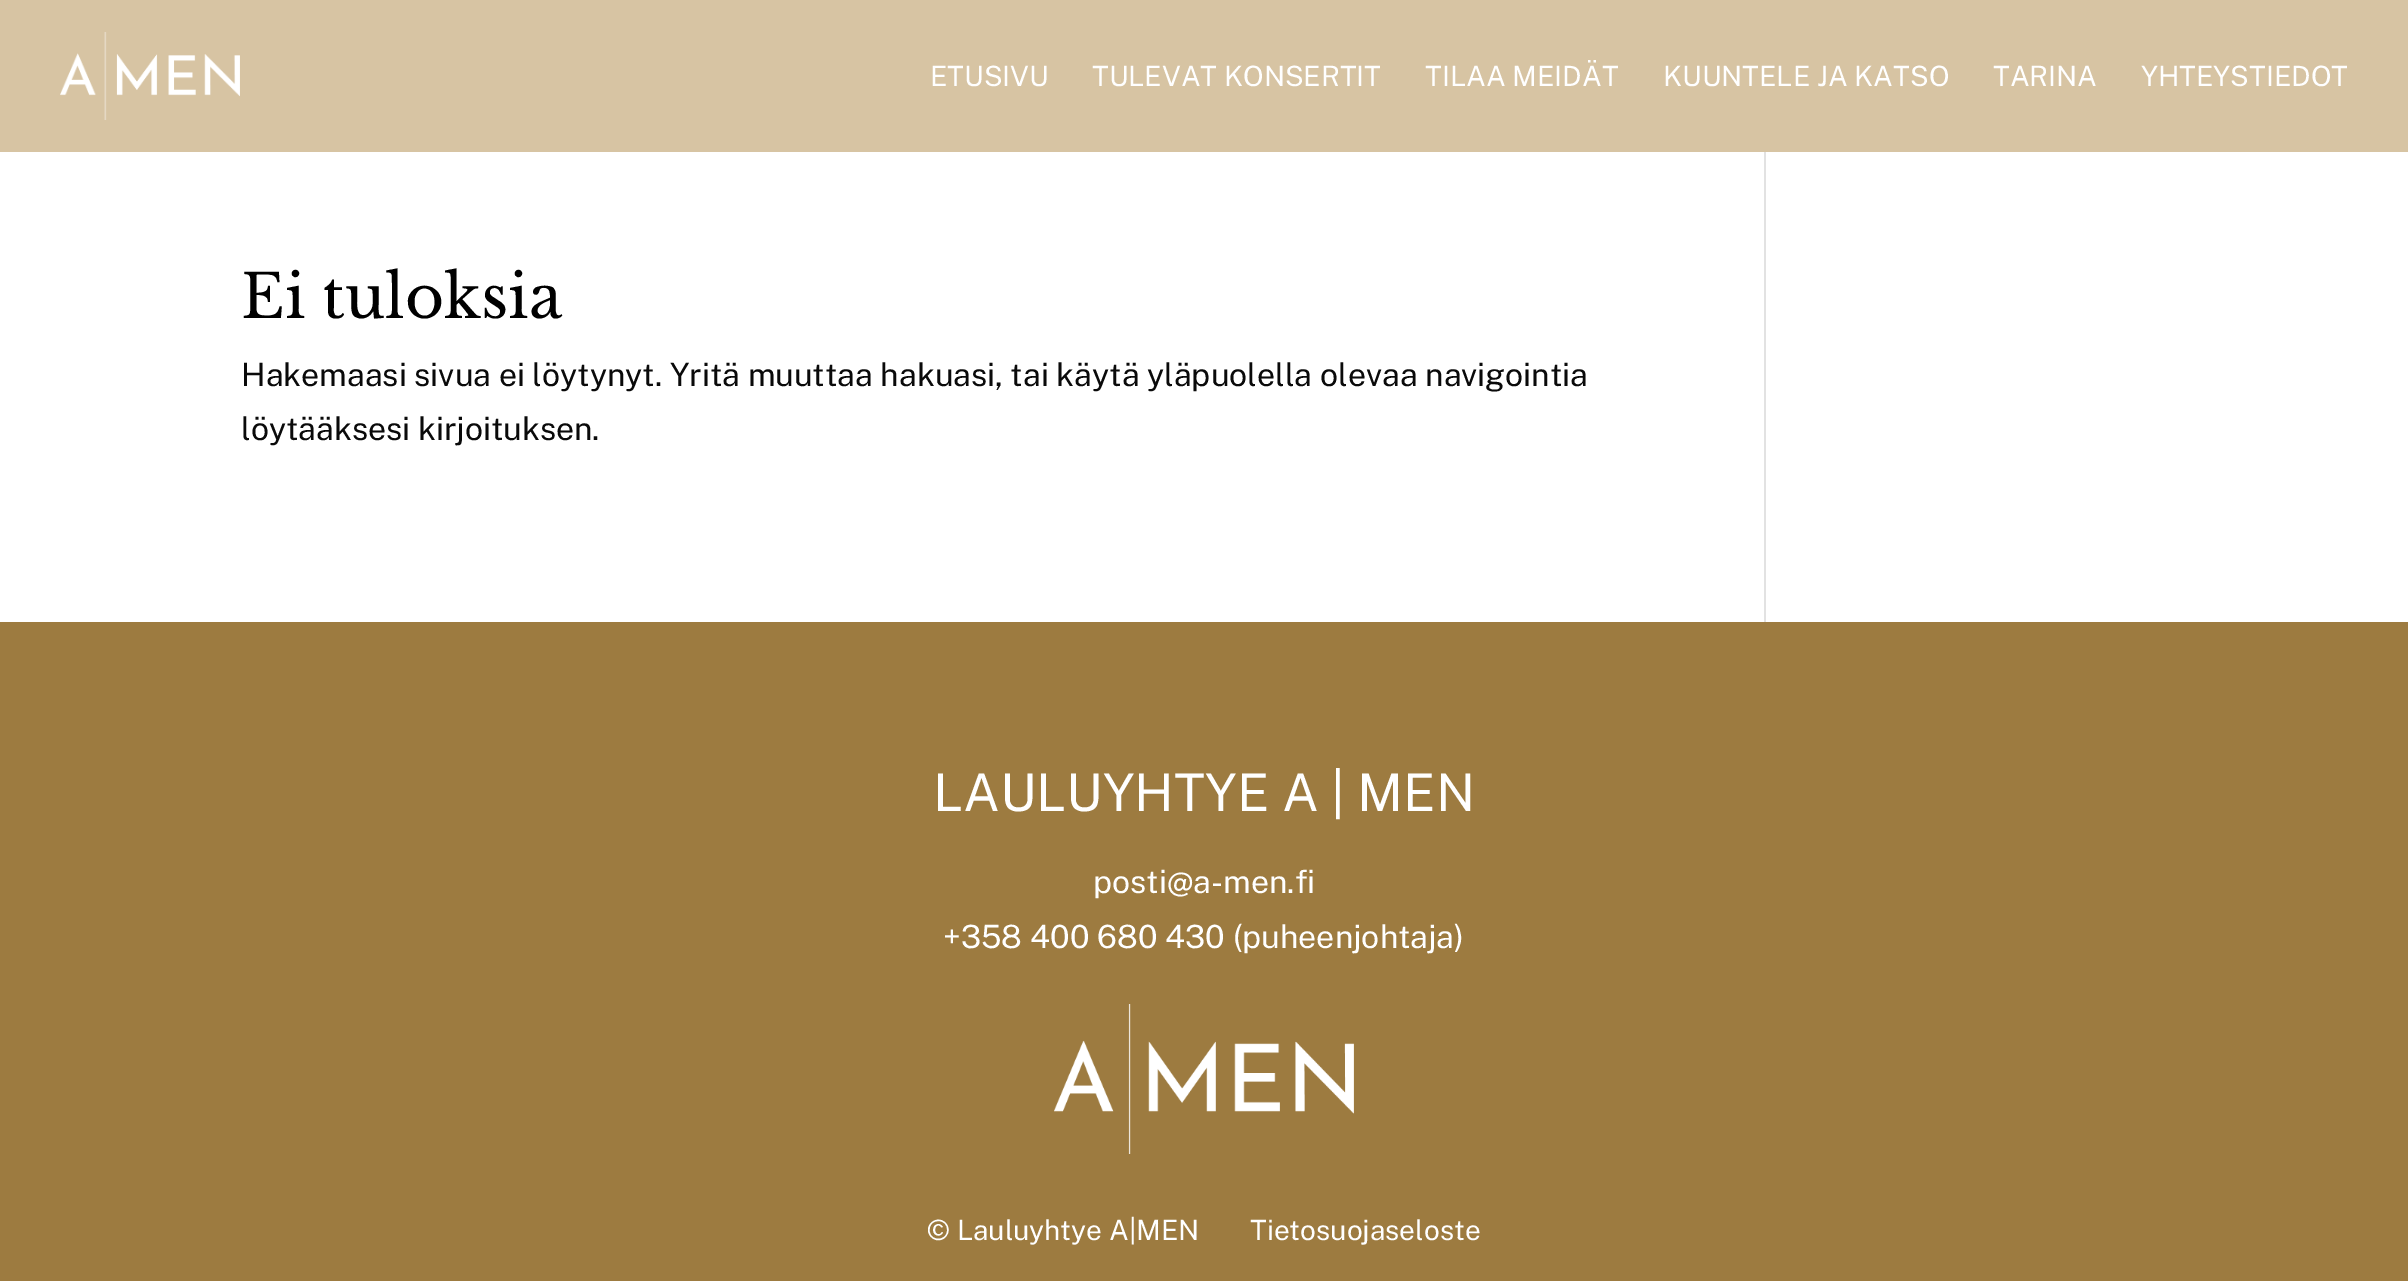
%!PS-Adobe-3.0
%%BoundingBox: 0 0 2408 1281
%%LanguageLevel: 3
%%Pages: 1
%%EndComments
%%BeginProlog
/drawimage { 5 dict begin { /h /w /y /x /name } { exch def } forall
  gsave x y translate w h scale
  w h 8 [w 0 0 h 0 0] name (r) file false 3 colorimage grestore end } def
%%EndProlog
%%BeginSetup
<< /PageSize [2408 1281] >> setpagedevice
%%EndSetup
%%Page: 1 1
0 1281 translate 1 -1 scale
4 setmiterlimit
0.843 0.769 0.639 setrgbcolor
0 0 2408 1281 rectfill
(images/1.raw) 60 32 180 88 drawimage
1 setgray
0 152 2408 470 rectfill
0.886 setgray
1764 152 2 470 rectfill
0.616 0.482 0.251 setrgbcolor
0 622 2408 659 rectfill
(images/2.raw) 1054 1004 300 150 drawimage
/PublicSans-Regular [28 0 0 -28 0 0] selectfont
1 setgray
930 86 moveto (ETUSIVU) show
1092 86 moveto (TULEVAT KONSERTIT) show
1425 86 moveto (TILAA MEIDÄT) show
1663 86 moveto (KUUNTELE JA KATSO) show
1993 86 moveto (TARINA) show
2141 86 moveto (YHTEYSTIEDOT) show
/LibreBaskerville-Regular [60 0 0 -60 0 0] selectfont
0 setgray
241 318 moveto (Ei tuloksia) show
/PublicSans-Regular [32 0 0 -32 0 0] selectfont
0.039 setgray
241 386 moveto (Hakemaasi sivua ei löytynyt. Yritä muuttaa hakuasi, tai käytä yläpuolella olevaa navigointia) show
241 440 moveto (löytääksesi kirjoituksen.) show
/PublicSans-Regular [52 0 0 -52 0 0] selectfont
1 setgray
933 811 moveto (LAULUYHTYE A | MEN) show
/PublicSans-Regular [32 0 0 -32 0 0] selectfont
1093 893 moveto (posti@a-men.fi) show
943 948 moveto (+358 400 680 430 \(puheenjohtaja\)) show
/PublicSans-Regular [28 0 0 -28 0 0] selectfont
927 1240 moveto (© Lauluyhtye A|MEN) show
1250 1240 moveto (Tietosuojaseloste) show
showpage
%%EOF
